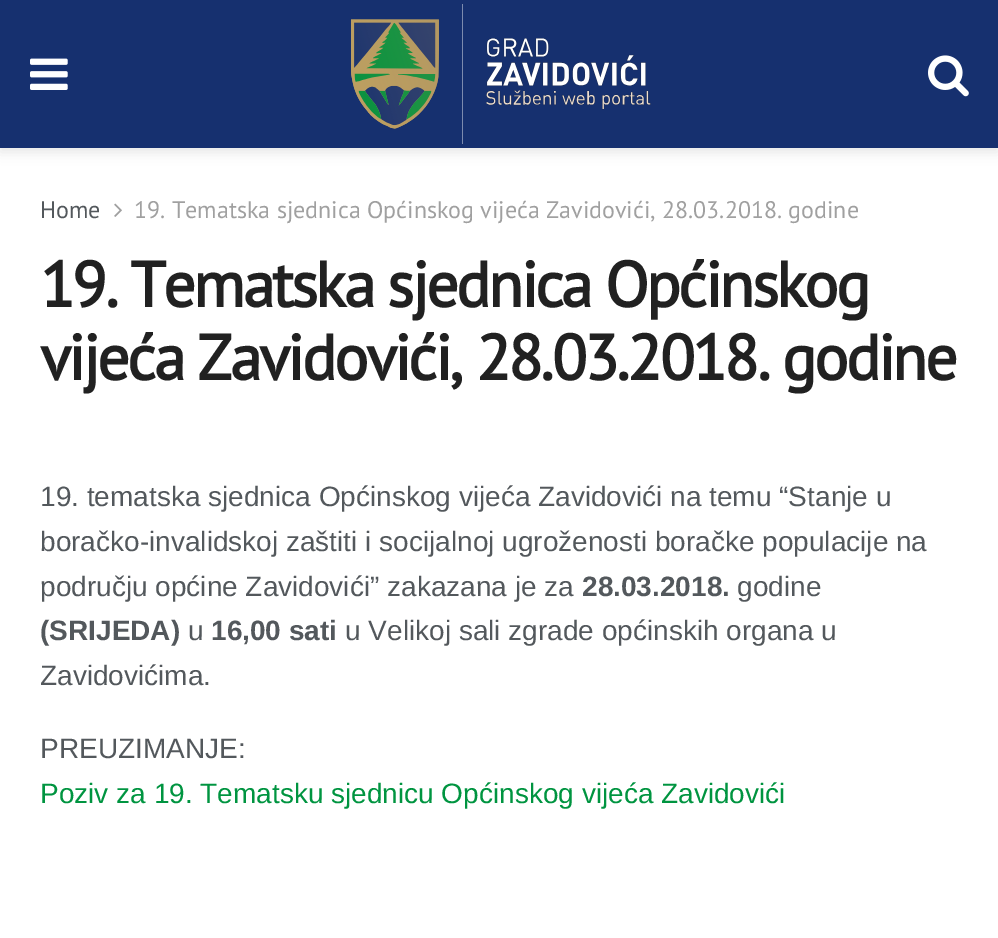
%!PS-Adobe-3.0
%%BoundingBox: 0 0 998 938
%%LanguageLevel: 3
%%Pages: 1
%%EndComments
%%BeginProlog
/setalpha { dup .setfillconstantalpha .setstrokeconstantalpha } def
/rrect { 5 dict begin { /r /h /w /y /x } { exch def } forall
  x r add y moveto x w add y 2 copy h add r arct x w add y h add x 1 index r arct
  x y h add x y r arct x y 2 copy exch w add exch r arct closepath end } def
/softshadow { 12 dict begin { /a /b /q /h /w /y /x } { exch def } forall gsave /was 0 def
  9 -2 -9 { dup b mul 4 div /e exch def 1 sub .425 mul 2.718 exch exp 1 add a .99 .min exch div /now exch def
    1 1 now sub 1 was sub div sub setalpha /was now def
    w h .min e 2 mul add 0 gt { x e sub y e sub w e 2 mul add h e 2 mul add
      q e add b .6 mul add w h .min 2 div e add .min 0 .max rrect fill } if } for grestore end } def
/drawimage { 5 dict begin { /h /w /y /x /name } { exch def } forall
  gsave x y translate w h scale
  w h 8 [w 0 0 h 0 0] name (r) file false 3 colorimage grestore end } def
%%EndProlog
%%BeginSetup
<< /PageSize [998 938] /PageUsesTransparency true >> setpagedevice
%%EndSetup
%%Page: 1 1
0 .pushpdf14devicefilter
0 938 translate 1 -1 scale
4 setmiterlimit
1 setgray
0 0 998 938 rectfill
0 setgray
0 4 998 148 0 6 0.1 softshadow
0.086 0.188 0.435 setrgbcolor
0 0 998 148 rectfill
(images/1.raw) 30 58 38 32 drawimage
(images/2.raw) 351 4 300 140 drawimage
(images/3.raw) 928 55 41 42 drawimage
(images/4.raw) 114 203 8 14 drawimage
/PTSans-Regular [24 0 0 -24 0 0] selectfont
0.325 0.345 0.361 setrgbcolor
40 218 moveto (Home) show
0.627 setgray
134 218 moveto (19. Tematska sjednica Općinskog vijeća Zavidovići, 28.03.2018. godine) show
/PTSans-Bold [64 0 0 -64 0 0] selectfont
0.129 setgray
40 307 moveto -2.55 0 (19. Tematska sjednica Općinskog) ashow
40 380 moveto -2.55 0 (vijeća Zavidovići, 28.03.2018. godine) ashow
/LiberationSans-Regular [28 0 0 -28 0 0] selectfont
0.325 0.345 0.361 setrgbcolor
40 506 moveto (19. tematska sjednica Općinskog vijeća Zavidovići na temu “Stanje u) show
40 551 moveto (boračko-invalidskoj zaštiti i socijalnoj ugroženosti boračke populacije na) show
40 596 moveto (području općine Zavidovići” zakazana je za) show
/LiberationSans-Bold [28 0 0 -28 0 0] selectfont
582 596 moveto (28.03.2018.) show
/LiberationSans-Regular [28 0 0 -28 0 0] selectfont
737 596 moveto (godine) show
/LiberationSans-Bold [28 0 0 -28 0 0] selectfont
40 640 moveto (\(SRIJEDA\)) show
/LiberationSans-Regular [28 0 0 -28 0 0] selectfont
188 640 moveto (u) show
/LiberationSans-Bold [28 0 0 -28 0 0] selectfont
211 640 moveto (16,00 sati) show
/LiberationSans-Regular [28 0 0 -28 0 0] selectfont
345 640 moveto (u Velikoj sali zgrade općinskih organa u) show
40 685 moveto (Zavidovićima.) show
40 758 moveto (PREUZIMANJE:) show
0 0.58 0.251 setrgbcolor
40 803 moveto (Poziv za 19. Tematsku sjednicu Općinskog vijeća Zavidovići) show
.poppdf14devicefilter showpage
%%EOF
